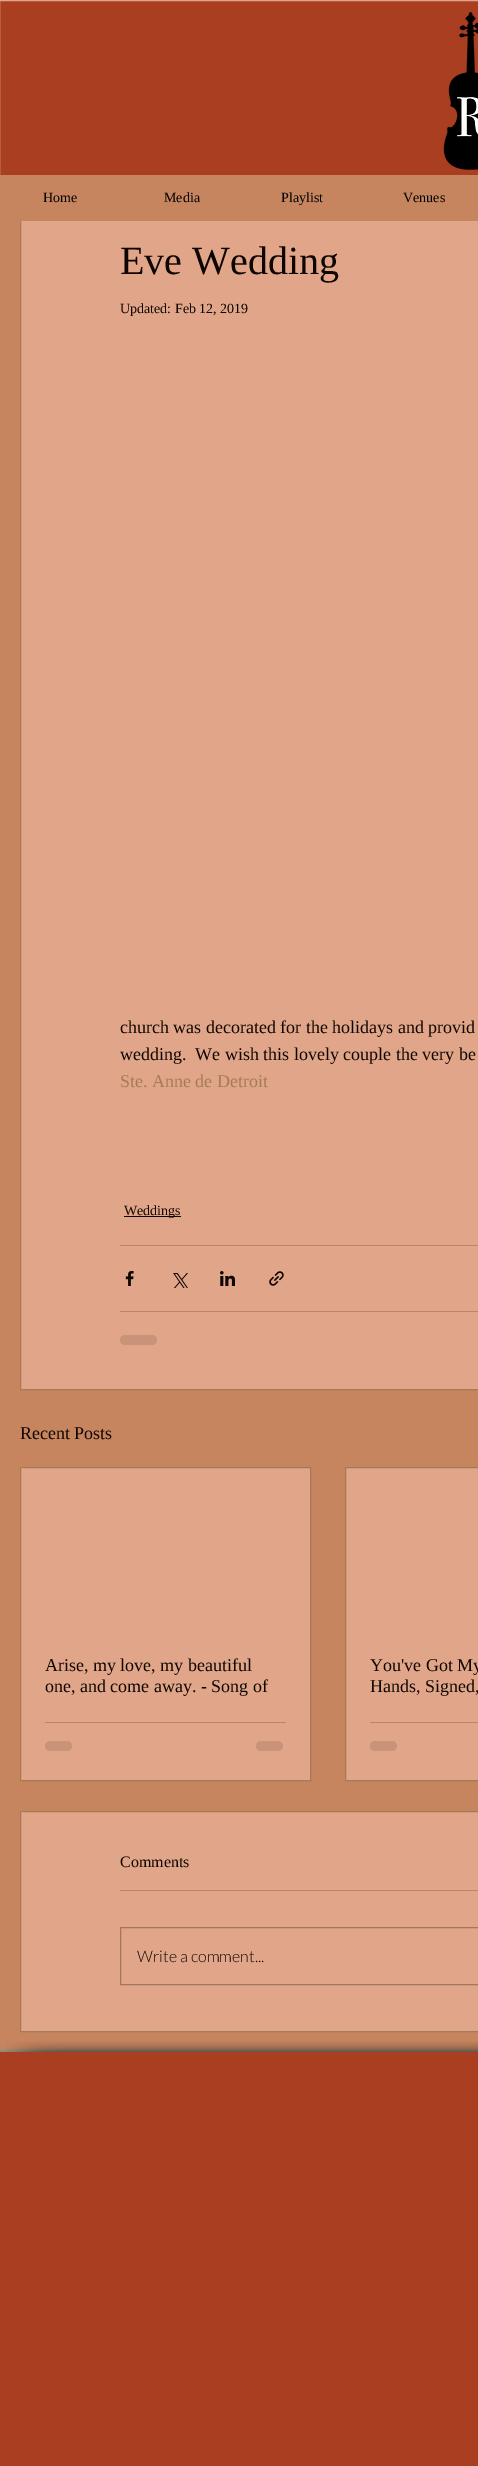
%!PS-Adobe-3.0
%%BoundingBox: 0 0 478 2466
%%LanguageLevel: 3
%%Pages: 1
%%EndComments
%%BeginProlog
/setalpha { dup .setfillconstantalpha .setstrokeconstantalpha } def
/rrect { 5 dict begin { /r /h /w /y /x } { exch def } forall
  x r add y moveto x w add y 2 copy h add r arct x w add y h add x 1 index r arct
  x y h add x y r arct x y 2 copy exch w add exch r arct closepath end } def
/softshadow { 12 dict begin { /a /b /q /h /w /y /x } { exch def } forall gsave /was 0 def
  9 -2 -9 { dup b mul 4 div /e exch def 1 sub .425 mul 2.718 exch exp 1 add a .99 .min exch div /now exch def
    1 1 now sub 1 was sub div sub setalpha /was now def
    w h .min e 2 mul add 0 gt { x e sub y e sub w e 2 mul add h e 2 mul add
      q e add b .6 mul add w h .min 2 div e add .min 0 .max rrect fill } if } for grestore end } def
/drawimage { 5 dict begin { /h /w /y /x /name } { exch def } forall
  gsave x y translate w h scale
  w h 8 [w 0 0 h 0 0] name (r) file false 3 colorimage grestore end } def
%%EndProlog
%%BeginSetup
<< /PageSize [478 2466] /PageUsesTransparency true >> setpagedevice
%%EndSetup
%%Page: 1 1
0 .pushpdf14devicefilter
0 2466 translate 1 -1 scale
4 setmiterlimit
0.776 0.518 0.373 setrgbcolor
0 0 478 2466 rectfill
0.882 0.651 0.541 setrgbcolor
21 221 457 1168 rectfill
0.647 0.482 0.325 setrgbcolor
20.5 53.5 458 1336 rectstroke
0.663 0.243 0.125 setrgbcolor
0 1 478 174 rectfill
0.878 0.651 0.533 setrgbcolor
-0.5 0.5 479 213 rectstroke
(images/1.raw) 443 12 35 158 drawimage
0.776 0.518 0.373 setrgbcolor
0 175 478 46 rectfill
0.059 0.02 0 setrgbcolor
124 1216 57 1 rectfill
0.718 0.525 0.431 setrgbcolor
120 1245 358 1 rectfill
(images/2.raw) 125 1271 9 15 drawimage
(images/3.raw) 173 1273 15 15 drawimage
(images/4.raw) 220 1271 15 15 drawimage
(images/5.raw) 269 1271 15 15 drawimage
120 1311 358 1 rectfill
0.784 0.576 0.475 setrgbcolor
120 1335 37 10 5 rrect fill
0.882 0.651 0.537 setrgbcolor
newpath 20.5 1467.5 moveto 310.5 1467.5 lineto 310.5 1780.5 lineto 20.5 1780.5 lineto closepath gsave fill grestore
0.647 0.482 0.325 setrgbcolor
stroke
0.718 0.525 0.431 setrgbcolor
45 1722 241 1 rectfill
0.784 0.576 0.475 setrgbcolor
45 1741 27 10 5 rrect fill
256 1741 27 10 5 rrect fill
0.882 0.651 0.537 setrgbcolor
newpath 345.5 1467.5 moveto 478.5 1467.5 lineto 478.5 1780.5 lineto 345.5 1780.5 lineto closepath gsave fill grestore
0.647 0.482 0.325 setrgbcolor
stroke
0.718 0.525 0.431 setrgbcolor
370 1722 108 1 rectfill
0.784 0.576 0.475 setrgbcolor
370 1741 27 10 5 rrect fill
0.882 0.651 0.537 setrgbcolor
newpath 20.5 1811.5 moveto 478.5 1811.5 lineto 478.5 2031.5 lineto 20.5 2031.5 lineto closepath gsave fill grestore
0.647 0.482 0.325 setrgbcolor
stroke
0.718 0.525 0.431 setrgbcolor
120 1890 358 1 rectfill
0.635 0.463 0.376 setrgbcolor
120.5 1927.5 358 57 rectstroke
0 0.631 0.765 setrgbcolor
0 2052 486 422 0 2.5 0.7 softshadow
(images/6.raw) 5 2041 95 11 drawimage
(images/7.raw) 100 2041 378 11 drawimage
0.663 0.243 0.125 setrgbcolor
0 2052 478 414 rectfill
/LiberationSerif-Regular [14 0 0 -14 0 0] selectfont
0 setgray
43 202 moveto (Home) show
164 202 moveto (Media) show
281 202 moveto (Playlist) show
403 202 moveto (Venues) show
/LiberationSerif-Regular [40 0 0 -40 0 0] selectfont
0.059 0.02 0 setrgbcolor
120 274 moveto (Eve Wedding) show
/LiberationSerif-Regular [14 0 0 -14 0 0] selectfont
120 313 moveto (Updated: Feb 12, 2019) show
/LiberationSerif-Regular [18 0 0 -18 0 0] selectfont
120 1033 moveto (church was decorated for the holidays and provid) show
120 1060 moveto (wedding.  We wish this lovely couple the very be) show
0.647 0.482 0.325 setrgbcolor
120 1087 moveto (Ste. Anne de Detroit) show
/LiberationSerif-Regular [14 0 0 -14 0 0] selectfont
0.059 0.02 0 setrgbcolor
124 1215 moveto (Weddings) show
/LiberationSerif-Regular [18 0 0 -18 0 0] selectfont
20 1439 moveto (Recent Posts) show
45 1671 moveto (Arise, my love, my beautiful) show
45 1692 moveto (one, and come away. - Song of) show
370 1671 moveto (You've Got My) show
370 1692 moveto (Hands, Signed,) show
/LiberationSerif-Regular [16 0 0 -16 0 0] selectfont
120 1867 moveto (Comments) show
/Lato-Light [16 0 0 -16 0 0] selectfont
137 1962 moveto (Write a comment...) show
.poppdf14devicefilter showpage
%%EOF
